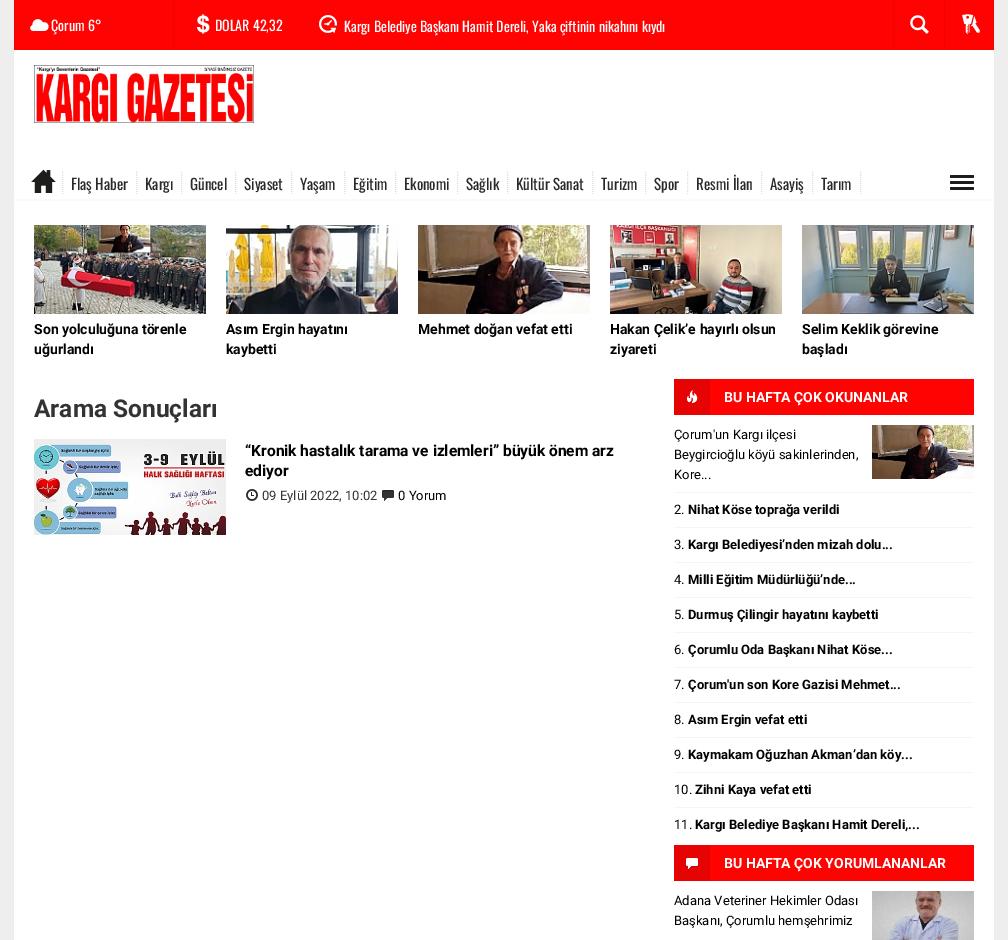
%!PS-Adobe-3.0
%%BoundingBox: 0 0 1008 940
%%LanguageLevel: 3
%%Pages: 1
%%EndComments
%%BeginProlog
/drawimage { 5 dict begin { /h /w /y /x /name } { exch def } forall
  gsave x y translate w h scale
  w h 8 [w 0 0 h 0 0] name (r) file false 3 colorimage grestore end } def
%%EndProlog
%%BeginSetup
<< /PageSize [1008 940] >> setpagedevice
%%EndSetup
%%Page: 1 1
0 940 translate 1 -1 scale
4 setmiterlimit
0.933 setgray
0 0 1008 940 rectfill
1 setgray
14 50 980 890 rectfill
1 0.012 0.012 setrgbcolor
15 0 978 50 rectfill
0.949 0.012 0.012 setrgbcolor
14 0 1 50 rectfill
(images/1.raw) 30 19 19 12 drawimage
173 0 1 50 rectfill
(images/2.raw) 197 14 13 20 drawimage
(images/3.raw) 319 15 18 18 drawimage
893 0 1 50 rectfill
(images/4.raw) 910 15 19 19 drawimage
993 0 1 50 rectfill
944 0 1 50 rectfill
(images/5.raw) 962 14 18 20 drawimage
(images/6.raw) 34 65 220 58 drawimage
0.98 setgray
14 199 980 2 rectfill
0.867 setgray
[1 1] 0 setdash
newpath 62.5 171 moveto 62.5 195 lineto stroke
(images/7.raw) 31 169 25 24 drawimage
newpath 136.5 171 moveto 136.5 195 lineto stroke
newpath 181.5 171 moveto 181.5 195 lineto stroke
newpath 235.5 171 moveto 235.5 195 lineto stroke
newpath 291.5 171 moveto 291.5 195 lineto stroke
newpath 344.5 171 moveto 344.5 195 lineto stroke
newpath 395.5 171 moveto 395.5 195 lineto stroke
newpath 457.5 171 moveto 457.5 195 lineto stroke
newpath 507.5 171 moveto 507.5 195 lineto stroke
newpath 592.5 171 moveto 592.5 195 lineto stroke
newpath 645.5 171 moveto 645.5 195 lineto stroke
newpath 687.5 171 moveto 687.5 195 lineto stroke
newpath 761.5 171 moveto 761.5 195 lineto stroke
newpath 812.5 171 moveto 812.5 195 lineto stroke
newpath 860.5 171 moveto 860.5 195 lineto stroke
(images/8.raw) 950 175 24 15 drawimage
(images/9.raw) 34 225 172 89 drawimage
(images/10.raw) 226 225 172 89 drawimage
(images/11.raw) 418 225 172 89 drawimage
(images/12.raw) 610 225 172 89 drawimage
(images/13.raw) 802 225 172 89 drawimage
(images/14.raw) 34 439 192 96 drawimage
(images/15.raw) 246 489 12 12 drawimage
(images/16.raw) 382 490 12 11 drawimage
1 0.012 0.012 setrgbcolor
710 379 264 36 rectfill
0.902 0.012 0.012 setrgbcolor
674 379 36 36 rectfill
(images/17.raw) 687 390 11 14 drawimage
0.961 setgray
674 492 300 1 rectfill
(images/18.raw) 872 425 102 54 drawimage
674 527 300 1 rectfill
674 562 300 1 rectfill
674 597 300 1 rectfill
674 632 300 1 rectfill
674 667 300 1 rectfill
674 702 300 1 rectfill
674 737 300 1 rectfill
674 772 300 1 rectfill
674 807 300 1 rectfill
1 0.012 0.012 setrgbcolor
710 845 264 36 rectfill
0.902 0.012 0.012 setrgbcolor
674 845 36 36 rectfill
(images/19.raw) 686 858 12 12 drawimage
(images/20.raw) 872 891 102 49 drawimage
/Oswald-Regular [14 0 0 -14 0 0] selectfont
1 setgray
51 31 moveto (Çorum 6°) show
215 31 moveto (DOLAR 42,32) show
344 32 moveto (Kargı Belediye Başkanı Hamit Dereli, Yaka çiftinin nikahını kıydı) show
/Oswald-Regular [15 0 0 -15 0 0] selectfont
0.165 setgray
71 190 moveto (Flaş Haber) show
145 190 moveto (Kargı) show
190 190 moveto (Güncel) show
244 190 moveto (Siyaset) show
300 190 moveto (Yaşam) show
353 190 moveto (Eğitim) show
404 190 moveto (Ekonomi) show
466 190 moveto (Sağlık) show
516 190 moveto (Kültür Sanat) show
601 190 moveto (Turizm) show
654 190 moveto (Spor) show
696 190 moveto (Resmi İlan) show
770 190 moveto (Asayiş) show
821 190 moveto (Tarım) show
/Roboto-Bold [14 0 0 -14 0 0] selectfont
0 setgray
34 334 moveto (Son yolculuğuna törenle) show
34 354 moveto (uğurlandı) show
226 334 moveto (Asım Ergin hayatını) show
226 354 moveto (kaybetti) show
418 334 moveto (Mehmet doğan vefat etti) show
610 334 moveto (Hakan Çelik’e hayırlı olsun) show
610 354 moveto (ziyareti) show
802 334 moveto (Selim Keklik görevine) show
802 354 moveto (başladı) show
/Roboto-Bold [24.5 0 0 -24.5 0 0] selectfont
0.2 setgray
34 417 moveto (Arama Sonuçları) show
/Roboto-Bold [15.5 0 0 -15.5 0 0] selectfont
0 setgray
245 456 moveto (“Kronik hastalık tarama ve izlemleri” büyük önem arz) show
245 476 moveto (ediyor) show
/Roboto-Regular [13 0 0 -13 0 0] selectfont
0.2 setgray
262 500 moveto (09 Eylül 2022, 10:02) show
0 setgray
398 500 moveto (0 Yorum) show
/Roboto-Bold [14 0 0 -14 0 0] selectfont
1 setgray
724 402 moveto (BU HAFTA ÇOK OKUNANLAR) show
/Roboto-Regular [13 0 0 -13 0 0] selectfont
0 setgray
674 439 moveto (Çorum'un Kargı ilçesi) show
674 459 moveto (Beygircioğlu köyü sakinlerinden,) show
674 479 moveto (Kore...) show
674 514 moveto (2.) show
/Roboto-Bold [13 0 0 -13 0 0] selectfont
688 514 moveto (Nihat Köse toprağa verildi) show
/Roboto-Regular [13 0 0 -13 0 0] selectfont
674 549 moveto (3.) show
/Roboto-Bold [13 0 0 -13 0 0] selectfont
688 549 moveto (Kargı Belediyesi’nden mizah dolu...) show
/Roboto-Regular [13 0 0 -13 0 0] selectfont
674 584 moveto (4.) show
/Roboto-Bold [13 0 0 -13 0 0] selectfont
688 584 moveto (Milli Eğitim Müdürlüğü’nde...) show
/Roboto-Regular [13 0 0 -13 0 0] selectfont
674 619 moveto (5.) show
/Roboto-Bold [13 0 0 -13 0 0] selectfont
688 619 moveto (Durmuş Çilingir hayatını kaybetti) show
/Roboto-Regular [13 0 0 -13 0 0] selectfont
674 654 moveto (6.) show
/Roboto-Bold [13 0 0 -13 0 0] selectfont
688 654 moveto (Çorumlu Oda Başkanı Nihat Köse...) show
/Roboto-Regular [13 0 0 -13 0 0] selectfont
674 689 moveto (7.) show
/Roboto-Bold [13 0 0 -13 0 0] selectfont
688 689 moveto (Çorum'un son Kore Gazisi Mehmet...) show
/Roboto-Regular [13 0 0 -13 0 0] selectfont
674 724 moveto (8.) show
/Roboto-Bold [13 0 0 -13 0 0] selectfont
688 724 moveto (Asım Ergin vefat etti) show
/Roboto-Regular [13 0 0 -13 0 0] selectfont
674 759 moveto (9.) show
/Roboto-Bold [13 0 0 -13 0 0] selectfont
688 759 moveto (Kaymakam Oğuzhan Akman’dan köy...) show
/Roboto-Regular [13 0 0 -13 0 0] selectfont
674 794 moveto (10.) show
/Roboto-Bold [13 0 0 -13 0 0] selectfont
695 794 moveto (Zihni Kaya vefat etti) show
/Roboto-Regular [13 0 0 -13 0 0] selectfont
674 829 moveto (11.) show
/Roboto-Bold [13 0 0 -13 0 0] selectfont
695 829 moveto (Kargı Belediye Başkanı Hamit Dereli,...) show
/Roboto-Bold [14 0 0 -14 0 0] selectfont
1 setgray
724 868 moveto (BU HAFTA ÇOK YORUMLANANLAR) show
/Roboto-Regular [13 0 0 -13 0 0] selectfont
0 setgray
674 905 moveto (Adana Veteriner Hekimler Odası) show
674 925 moveto (Başkanı, Çorumlu hemşehrimiz) show
showpage
%%EOF
